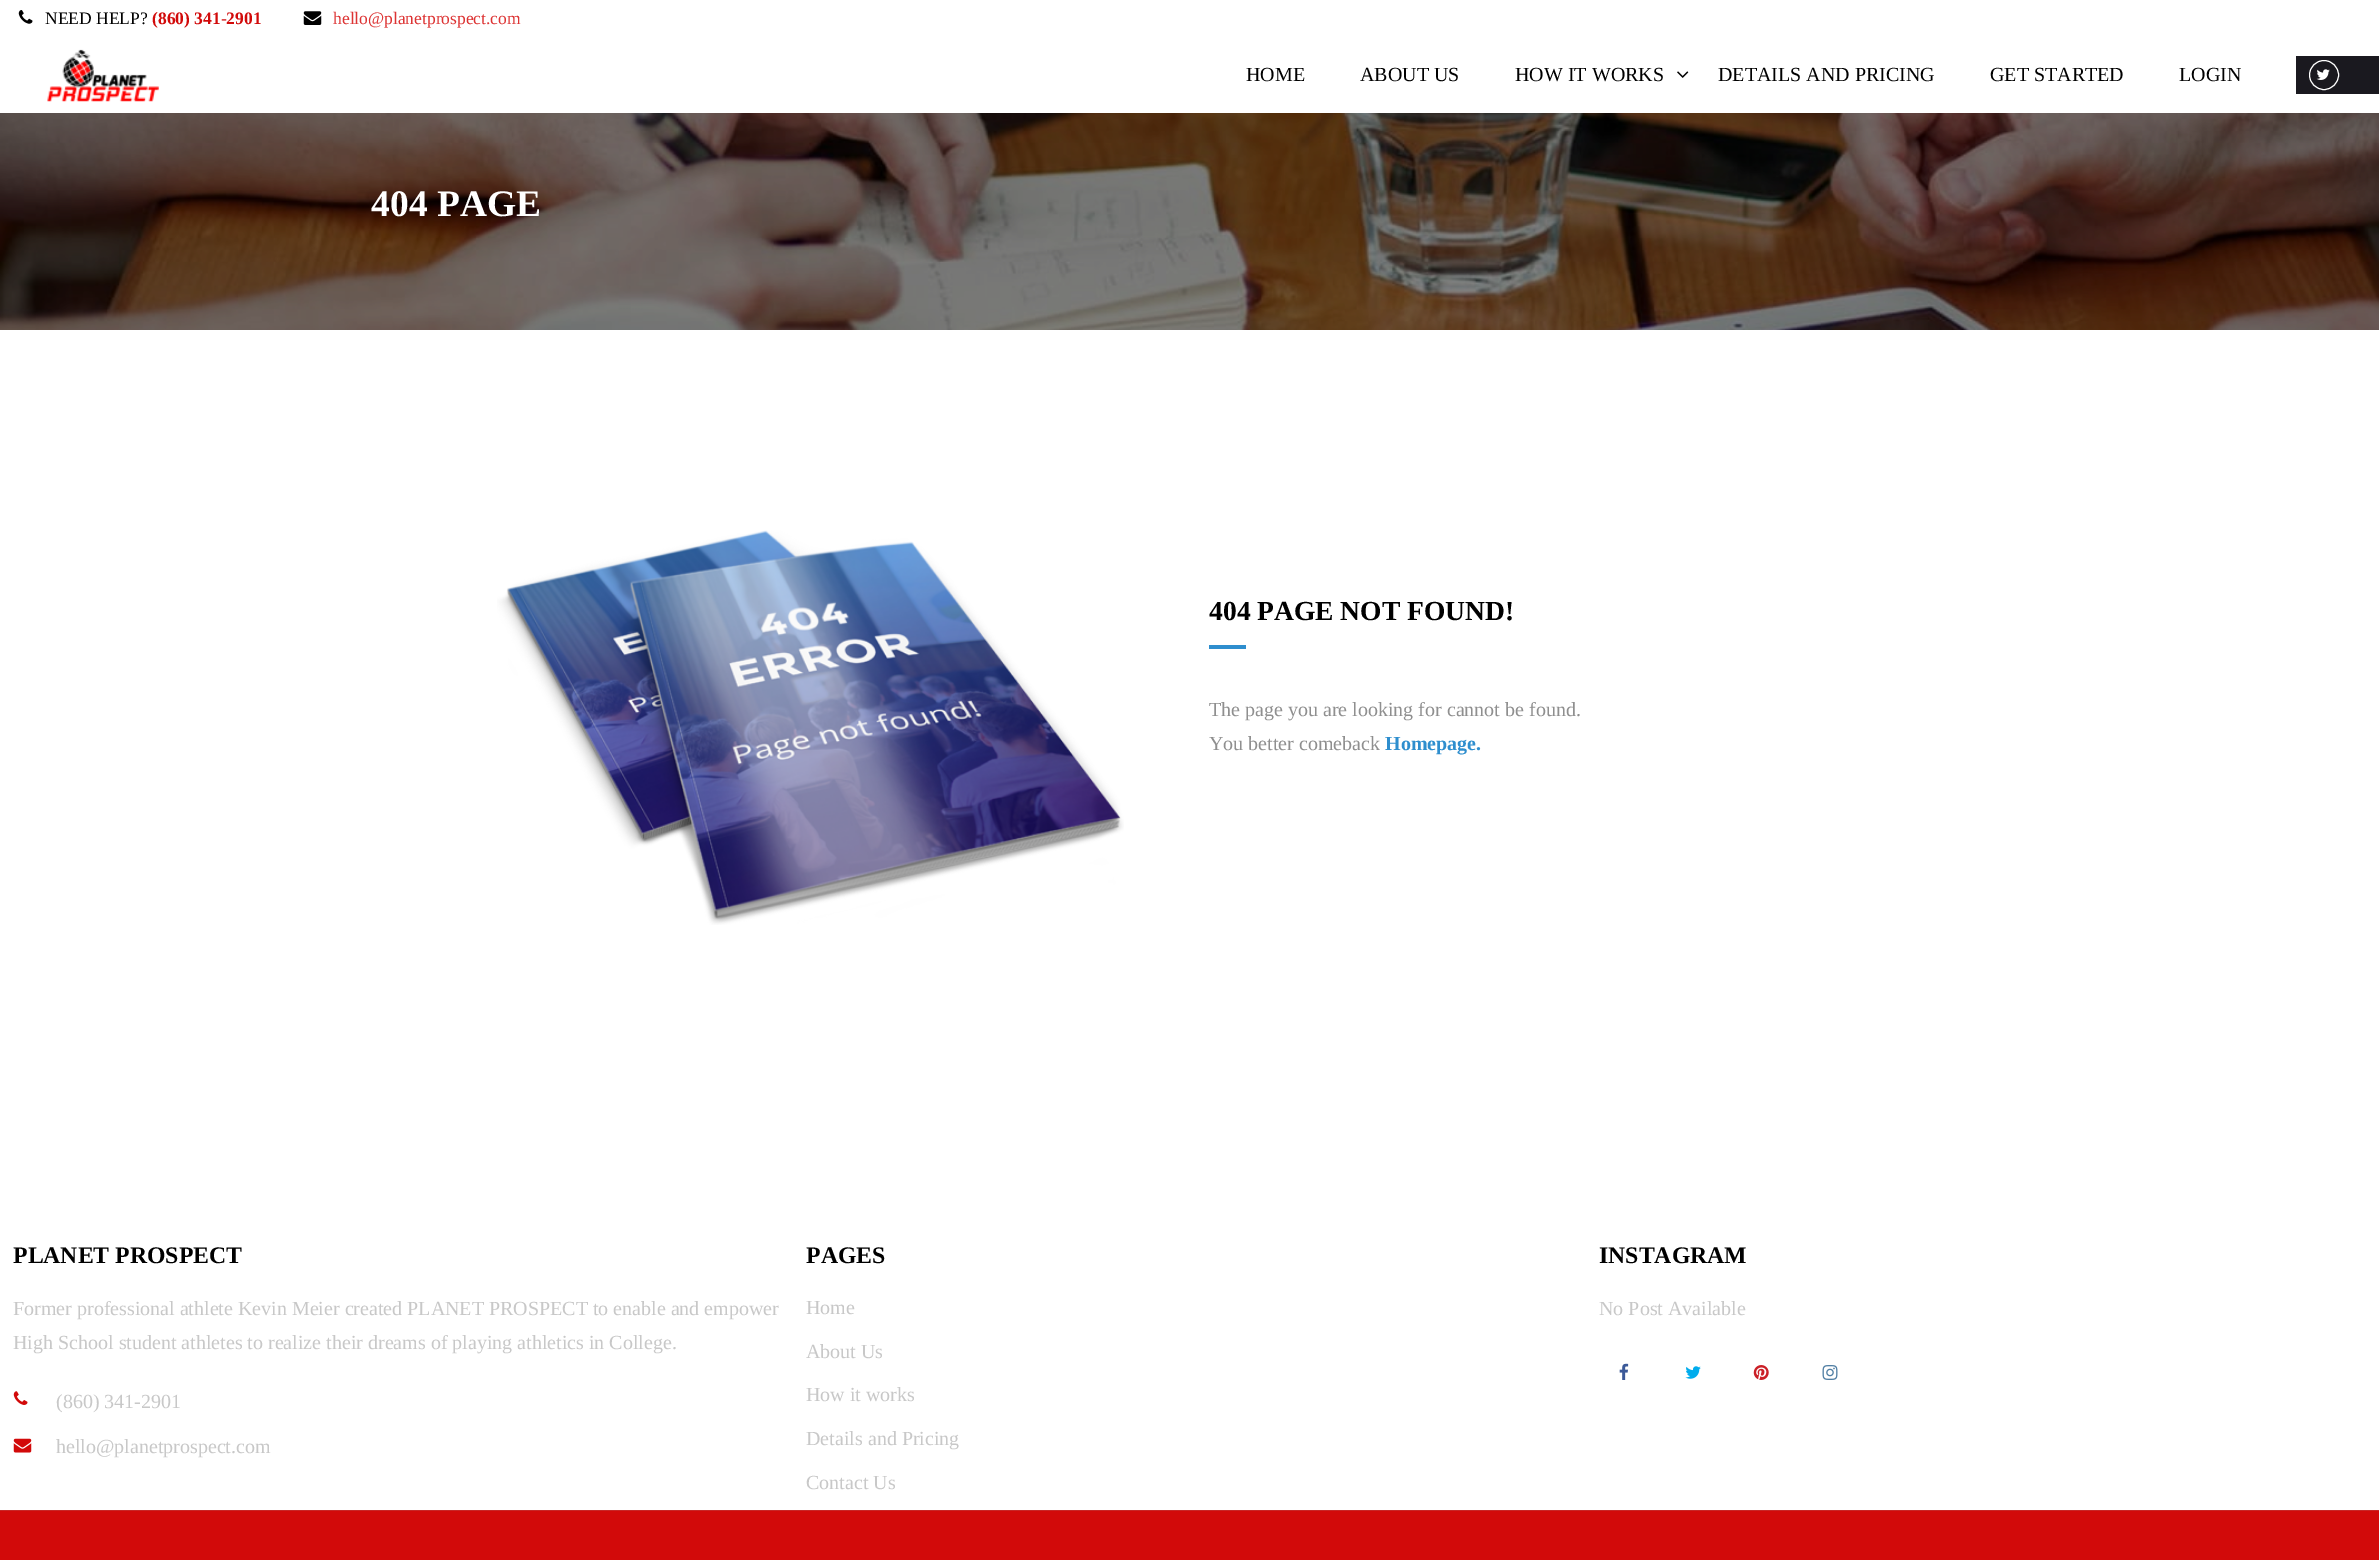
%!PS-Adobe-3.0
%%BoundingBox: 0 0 2379 1560
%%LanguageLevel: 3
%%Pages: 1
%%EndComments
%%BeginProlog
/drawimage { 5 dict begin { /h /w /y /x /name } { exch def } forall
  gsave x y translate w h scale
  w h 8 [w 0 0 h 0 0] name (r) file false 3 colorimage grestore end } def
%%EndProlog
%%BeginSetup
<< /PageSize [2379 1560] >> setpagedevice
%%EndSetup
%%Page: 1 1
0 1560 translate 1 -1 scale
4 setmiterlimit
1 setgray
0 0 2379 1560 rectfill
(images/1.raw) 18 10 15 14 drawimage
(images/2.raw) 303 11 19 14 drawimage
(images/3.raw) 47 49 112 53 drawimage
(images/4.raw) 1677 71 12 7 drawimage
0.102 0.098 0.122 setrgbcolor
2296 56 83 38 rectfill
1 setgray
newpath 2324 75 14.5 0 360 arc closepath stroke
(images/5.raw) 2316 69 14 11 drawimage
(images/6.raw) 0 113 2379 217 drawimage
(images/7.raw) 497 530 627 395 drawimage
0.18 0.557 0.808 setrgbcolor
1209 645 37 4 rectfill
(images/8.raw) 13 1391 15 14 drawimage
(images/9.raw) 13 1438 19 15 drawimage
(images/10.raw) 1619 1363 10 17 drawimage
(images/11.raw) 1685 1366 16 13 drawimage
(images/12.raw) 1753 1365 16 15 drawimage
(images/13.raw) 1822 1365 16 15 drawimage
0.824 0.039 0.039 setrgbcolor
0 1511 2379 49 rectfill
0.78 0.153 0.153 setrgbcolor
0 1510 2379 1 rectfill
/LiberationSerif-Regular [17.5 0 0 -17.5 0 0] selectfont
0 setgray
45 24 moveto (NEED HELP?) show
/LiberationSerif-Bold [17.5 0 0 -17.5 0 0] selectfont
0.824 0.039 0.039 setrgbcolor
152 24 moveto (\(860\) 341-2901) show
/LiberationSerif-Regular [17.5 0 0 -17.5 0 0] selectfont
0.867 0.2 0.2 setrgbcolor
333 24 moveto (hello@planetprospect.com) show
/LiberationSerif-Regular [20 0 0 -20 0 0] selectfont
0 setgray
1246 81 moveto (HOME) show
1360 81 moveto (ABOUT US) show
1515 81 moveto (HOW IT WORKS) show
1718 81 moveto (DETAILS AND PRICING) show
1990 81 moveto (GET STARTED) show
2179 81 moveto (LOGIN) show
/LiberationSerif-Bold [37.5 0 0 -37.5 0 0] selectfont
1 setgray
371 216 moveto (404 PAGE) show
/LiberationSerif-Bold [27.5 0 0 -27.5 0 0] selectfont
0 setgray
1209 620 moveto (404 PAGE NOT FOUND!) show
/LiberationSerif-Regular [20 0 0 -20 0 0] selectfont
0.561 setgray
1209 716 moveto (The page you are looking for cannot be found.) show
1209 750 moveto (You better comeback) show
/LiberationSerif-Bold [20 0 0 -20 0 0] selectfont
0.18 0.557 0.808 setrgbcolor
1385 750 moveto (Homepage.) show
/LiberationSerif-Bold [23.75 0 0 -23.75 0 0] selectfont
0 setgray
13 1263 moveto (PLANET PROSPECT) show
/LiberationSerif-Regular [20 0 0 -20 0 0] selectfont
0.784 setgray
13 1315 moveto (Former professional athlete Kevin Meier created PLANET PROSPECT to enable and empower) show
13 1349 moveto (High School student athletes to realize their dreams of playing athletics in College.) show
56 1408 moveto (\(860\) 341-2901) show
56 1453 moveto (hello@planetprospect.com) show
/LiberationSerif-Bold [23.75 0 0 -23.75 0 0] selectfont
0 setgray
806 1263 moveto (PAGES) show
/LiberationSerif-Regular [20 0 0 -20 0 0] selectfont
0.784 setgray
806 1314 moveto (Home) show
806 1358 moveto (About Us) show
806 1401 moveto (How it works) show
806 1445 moveto (Details and Pricing) show
806 1489 moveto (Contact Us) show
/LiberationSerif-Bold [23.75 0 0 -23.75 0 0] selectfont
0 setgray
1599 1263 moveto (INSTAGRAM) show
/LiberationSerif-Regular [20 0 0 -20 0 0] selectfont
0.784 setgray
1599 1315 moveto (No Post Available) show
showpage
%%EOF
